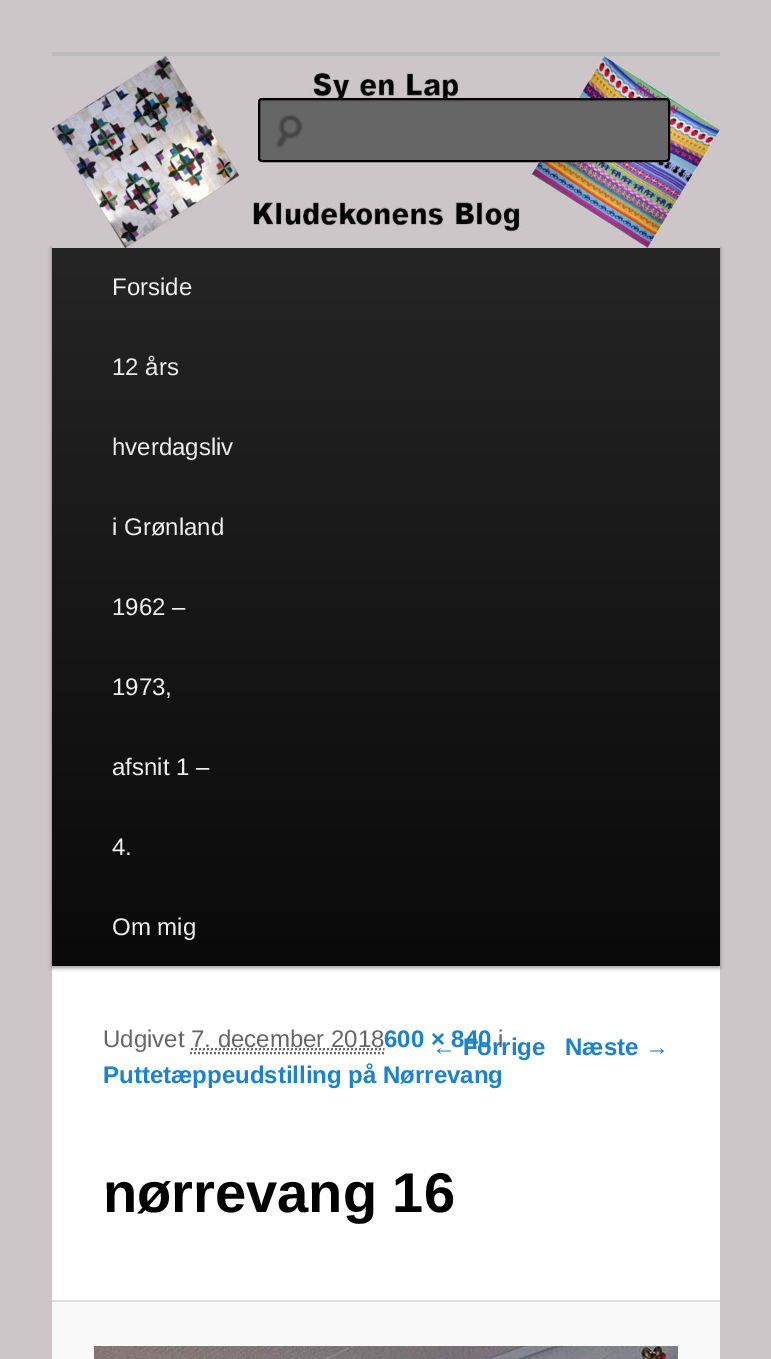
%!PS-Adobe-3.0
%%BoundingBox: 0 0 771 1359
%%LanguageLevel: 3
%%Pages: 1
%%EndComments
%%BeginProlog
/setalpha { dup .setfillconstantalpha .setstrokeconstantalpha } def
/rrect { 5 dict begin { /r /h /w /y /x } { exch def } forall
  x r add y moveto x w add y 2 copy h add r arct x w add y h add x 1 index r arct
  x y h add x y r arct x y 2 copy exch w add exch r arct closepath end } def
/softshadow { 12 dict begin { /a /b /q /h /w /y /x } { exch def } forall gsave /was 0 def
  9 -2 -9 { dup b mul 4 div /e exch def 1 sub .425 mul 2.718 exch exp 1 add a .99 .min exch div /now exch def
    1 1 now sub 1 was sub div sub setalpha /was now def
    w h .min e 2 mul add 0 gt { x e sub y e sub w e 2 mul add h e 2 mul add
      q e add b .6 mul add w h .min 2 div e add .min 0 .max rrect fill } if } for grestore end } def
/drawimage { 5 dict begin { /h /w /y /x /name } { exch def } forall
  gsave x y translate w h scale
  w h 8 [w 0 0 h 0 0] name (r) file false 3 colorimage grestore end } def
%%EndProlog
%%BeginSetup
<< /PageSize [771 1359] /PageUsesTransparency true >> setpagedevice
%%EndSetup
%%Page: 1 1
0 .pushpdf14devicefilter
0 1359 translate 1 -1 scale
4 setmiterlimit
0.8 0.776 0.784 setrgbcolor
0 0 771 1359 rectfill
1 setgray
52 966 668 334 rectfill
0.733 setgray
52 52 668 4 rectfill
0 setgray
52 248 668 720 0 2 0.4 softshadow
(images/1.raw) 52 56 668 192 drawimage
0.4 setgray
258 98 412 64 4 rrect fill
(images/2.raw) 276 114 27 34 drawimage
0.361 setgray
newpath 262 102 moveto 666 102 lineto 667 102 668 103 668 104 curveto 668 101 lineto 666 100 lineto 262 100 lineto 260 100 260 102 260 104 curveto 260 103 261 102 262 102 curveto closepath fill
0 setgray
2 setlinewidth
259 99 410 62 3 rrect stroke
gsave newpath 52 248 moveto 720 248 lineto 720 966 lineto 52 966 lineto closepath clip newpath
<< /ShadingType 2 /ColorSpace /DeviceRGB /Coords [386 246 386 966] /Extend [true true] /Function << /FunctionType 2 /Domain [0 1] /C0 [0.145 0.145 0.145] /C1 [0.039 0.039 0.039] /N 1 >> >> shfill grestore
0.4 setgray
[2 2] 0 setdash
newpath 191 1049 moveto 384.5 1049 lineto stroke
newpath 190 1053 moveto 384 1053 lineto stroke
0.976 setgray
52 1302 668 57 rectfill
0.867 setgray
52 1300 668 2 rectfill
(images/3.raw) 94 1346 584 13 drawimage
/LiberationSans-Regular [24 0 0 -24 0 0] selectfont
0.933 setgray
112 295 moveto (Forside) show
112 375 moveto (12 års) show
112 455 moveto (hverdagsliv) show
112 535 moveto (i Grønland) show
112 615 moveto (1962 –) show
112 695 moveto (1973,) show
112 775 moveto (afsnit 1 –) show
112 855 moveto (4.) show
112 935 moveto (Om mig) show
0.4 setgray
103 1047 moveto (Udgivet 7. december 2018) show
/LiberationSans-Bold [24 0 0 -24 0 0] selectfont
0.098 0.51 0.82 setrgbcolor
103 1083 moveto (Puttetæppeudstilling på Nørrevang) show
/LiberationSans-Bold [56 0 0 -56 0 0] selectfont
0 setgray
103 1212 moveto (nørrevang 16) show
/LiberationSans-Bold [24 0 0 -24 0 0] selectfont
0.098 0.51 0.82 setrgbcolor
432 1055 moveto (← Forrige) show
/LiberationSans-Regular [24 0 0 -24 0 0] selectfont
0.4 setgray
498 1047 moveto (i) show
/LiberationSans-Bold [24 0 0 -24 0 0] selectfont
0.098 0.51 0.82 setrgbcolor
384 1047 moveto (600 × 840) show
565 1055 moveto (Næste →) show
.poppdf14devicefilter showpage
%%EOF
